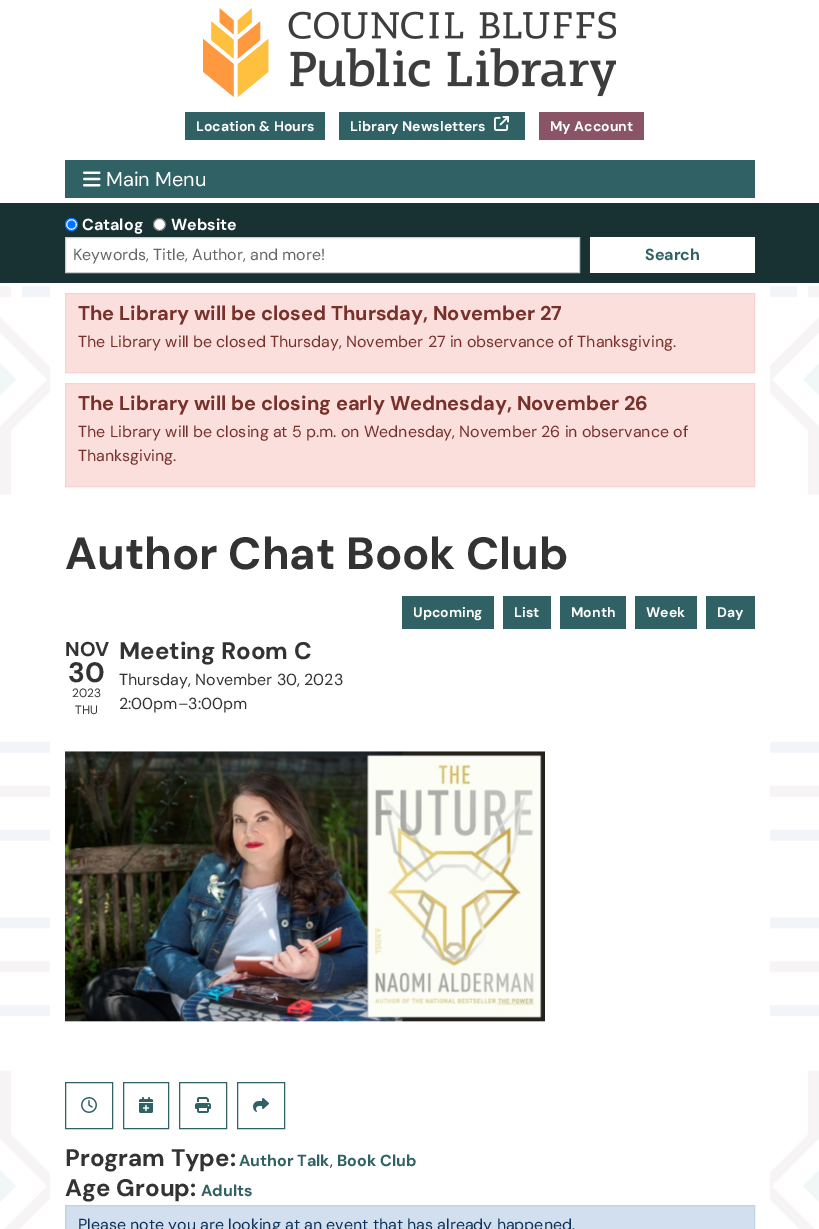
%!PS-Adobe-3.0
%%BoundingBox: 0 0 819 1229
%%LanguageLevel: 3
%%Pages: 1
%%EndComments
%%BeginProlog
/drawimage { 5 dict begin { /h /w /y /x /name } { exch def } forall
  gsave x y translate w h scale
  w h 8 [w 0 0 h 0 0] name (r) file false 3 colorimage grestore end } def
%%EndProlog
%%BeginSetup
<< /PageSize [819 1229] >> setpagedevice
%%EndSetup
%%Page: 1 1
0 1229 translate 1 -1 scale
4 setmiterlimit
1 setgray
0 0 819 1229 rectfill
(images/1.raw) 203 8 413 89 drawimage
0.184 0.38 0.396 setrgbcolor
185 112 140 28 rectfill
339 112 186 28 rectfill
(images/2.raw) 494 116 15 15 drawimage
0.541 0.329 0.4 setrgbcolor
539 112 105 28 rectfill
0.184 0.38 0.396 setrgbcolor
65 160 690 38 rectfill
(images/3.raw) 83 171 18 16 drawimage
0.094 0.192 0.2 setrgbcolor
0 203 819 80 rectfill
1 setgray
newpath 71.5 224.5 6 0 360 arc closepath gsave fill grestore
0 0.459 1 setrgbcolor
stroke
newpath 71.5 224.5 4 0 360 arc closepath fill
1 setgray
newpath 159.5 224.5 6 0 360 arc closepath gsave fill grestore
0.463 setgray
stroke
1 setgray
newpath 65.5 237.5 moveto 579.5 237.5 lineto 579.5 272.5 lineto 65.5 272.5 lineto closepath gsave fill grestore
0.8 setgray
stroke
1 setgray
590 237 165 36 rectfill
(images/4.raw) 0 286 819 943 drawimage
50 286 720 943 rectfill
0.98 0.875 0.863 setrgbcolor
newpath 65.5 293.5 moveto 754.5 293.5 lineto 754.5 372.5 lineto 65.5 372.5 lineto closepath gsave fill grestore
0.969 0.824 0.808 setrgbcolor
stroke
0.98 0.875 0.863 setrgbcolor
newpath 65.5 383.5 moveto 754.5 383.5 lineto 754.5 486.5 lineto 65.5 486.5 lineto closepath gsave fill grestore
0.969 0.824 0.808 setrgbcolor
stroke
0.184 0.38 0.396 setrgbcolor
402 596 92 33 rectfill
503 596 48 33 rectfill
560 596 66 33 rectfill
635 596 62 33 rectfill
706 596 49 33 rectfill
(images/5.raw) 65 751 480 271 drawimage
65.5 1082.5 47 46 rectstroke
(images/6.raw) 81 1097 16 16 drawimage
123.5 1082.5 45 46 rectstroke
(images/7.raw) 139 1097 14 16 drawimage
179.5 1082.5 47 46 rectstroke
(images/8.raw) 195 1097 16 16 drawimage
237.5 1082.5 47 46 rectstroke
(images/9.raw) 253 1098 16 14 drawimage
0.82 0.875 0.933 setrgbcolor
newpath 65.5 1205.5 moveto 754.5 1205.5 lineto 754.5 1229.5 lineto 65.5 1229.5 lineto closepath gsave fill grestore
0.749 0.824 0.906 setrgbcolor
stroke
/DMSans-Bold [14 0 0 -14 0 0] selectfont
1 setgray
196 131 moveto (Location & Hours) show
350 131 moveto (Library Newsletters) show
550 131 moveto (My Account) show
/DMSans-Regular [20 0 0 -20 0 0] selectfont
106 186 moveto (Main Menu) show
/DMSans-Bold [16 0 0 -16 0 0] selectfont
82 230 moveto (Catalog) show
171 230 moveto (Website) show
/DMSans-Regular [16 0 0 -16 0 0] selectfont
0.4 setgray
73 260 moveto (Keywords, Title, Author, and more!) show
/DMSans-Bold [16 0 0 -16 0 0] selectfont
0.184 0.38 0.396 setrgbcolor
645 260 moveto (Search) show
/DMSans-Bold [20 0 0 -20 0 0] selectfont
0.467 0.188 0.165 setrgbcolor
78 320 moveto (The Library will be closed Thursday, November 27) show
/DMSans-Regular [16 0 0 -16 0 0] selectfont
78 347 moveto (The Library will be closed Thursday, November 27 in observance of Thanksgiving.) show
/DMSans-Bold [20 0 0 -20 0 0] selectfont
78 410 moveto (The Library will be closing early Wednesday, November 26) show
/DMSans-Regular [16 0 0 -16 0 0] selectfont
78 437 moveto (The Library will be closing at 5 p.m. on Wednesday, November 26 in observance of) show
78 461 moveto (Thanksgiving.) show
/DMSans-Bold [45 0 0 -45 0 0] selectfont
0.2 setgray
65 569 moveto (Author Chat Book Club) show
/DMSans-Bold [14 0 0 -14 0 0] selectfont
1 setgray
413 617 moveto (Upcoming) show
514 617 moveto (List) show
571 617 moveto (Month) show
646 617 moveto (Week) show
717 617 moveto (Day) show
/DMSans-Bold [20 0 0 -20 0 0] selectfont
0.2 setgray
65 656 moveto (NOV) show
/DMSans-Bold [28 0 0 -28 0 0] selectfont
68 682 moveto (30) show
/DMSans-Regular [12 0 0 -12 0 0] selectfont
72 697 moveto (2023) show
75 714 moveto (THU) show
/DMSans-Bold [24 0 0 -24 0 0] selectfont
119 659 moveto (Meeting Room C) show
/DMSans-Regular [16 0 0 -16 0 0] selectfont
119 685 moveto (Thursday, November 30, 2023) show
119 709 moveto (2:00pm–3:00pm) show
/DMSans-Bold [24 0 0 -24 0 0] selectfont
65 1166 moveto (Program Type:) show
/DMSans-Bold [16 0 0 -16 0 0] selectfont
0.184 0.38 0.396 setrgbcolor
239 1166 moveto (Author Talk) show
/DMSans-Regular [16 0 0 -16 0 0] selectfont
0.2 setgray
330 1166 moveto (,) show
/DMSans-Bold [16 0 0 -16 0 0] selectfont
0.184 0.38 0.396 setrgbcolor
337 1166 moveto (Book Club) show
/DMSans-Bold [24 0 0 -24 0 0] selectfont
0.2 setgray
65 1196 moveto (Age Group:) show
/DMSans-Bold [16 0 0 -16 0 0] selectfont
0.184 0.38 0.396 setrgbcolor
201 1196 moveto (Adults) show
/DMSans-Regular [16 0 0 -16 0 0] selectfont
0.055 0.192 0.345 setrgbcolor
78 1230 moveto (Please note you are looking at an event that has already happened.) show
showpage
%%EOF
